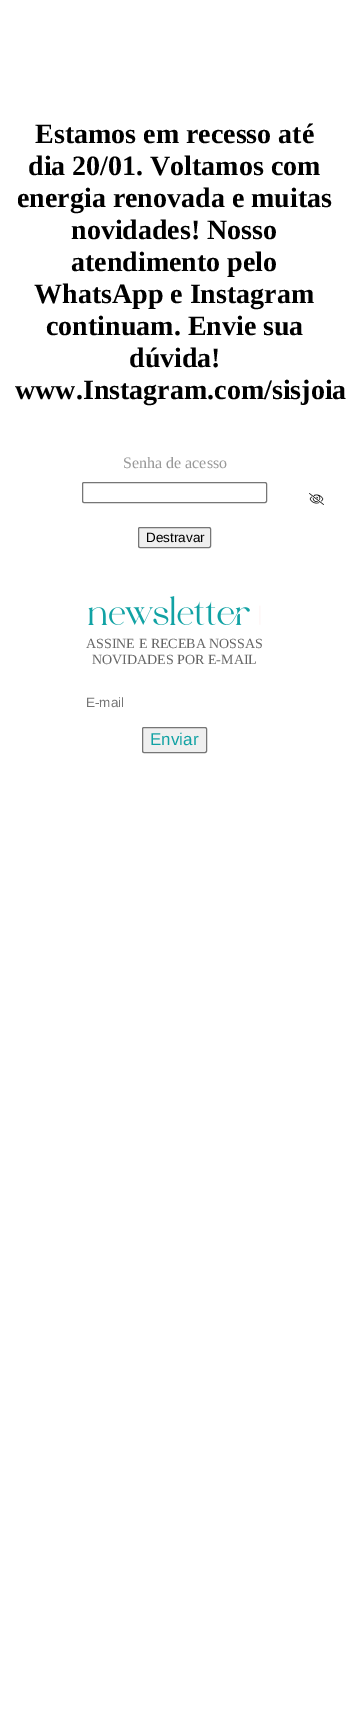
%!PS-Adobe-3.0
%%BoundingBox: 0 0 349 1720
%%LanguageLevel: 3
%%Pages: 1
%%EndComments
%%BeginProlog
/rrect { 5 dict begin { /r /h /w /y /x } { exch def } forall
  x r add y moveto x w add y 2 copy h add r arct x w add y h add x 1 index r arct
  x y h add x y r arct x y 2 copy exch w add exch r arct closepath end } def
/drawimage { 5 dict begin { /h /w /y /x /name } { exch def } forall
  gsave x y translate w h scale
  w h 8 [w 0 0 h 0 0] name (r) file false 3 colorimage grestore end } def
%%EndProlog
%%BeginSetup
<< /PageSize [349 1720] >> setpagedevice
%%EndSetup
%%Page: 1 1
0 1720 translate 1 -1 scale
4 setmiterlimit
1 setgray
0 0 349 1720 rectfill
0.463 setgray
82.5 482.5 184 20 1.5 rrect stroke
(images/1.raw) 309 493 15 12 drawimage
0.937 setgray
138.5 527.5 72 20 1.5 rrect gsave fill grestore
0.463 setgray
stroke
(images/2.raw) 88 596 173 29 drawimage
0.937 setgray
142.5 727.5 64 25 1.5 rrect gsave fill grestore
0.463 setgray
stroke
/LiberationSerif-Bold [28 0 0 -28 0 0] selectfont
0 setgray
35 143 moveto (Estamos em recesso até) show
28 175 moveto (dia 20/01. Voltamos com) show
17 207 moveto (energia renovada e muitas) show
71 239 moveto (novidades! Nosso) show
71 271 moveto (atendimento pelo) show
34 303 moveto (WhatsApp e Instagram) show
46 335 moveto (continuam. Envie sua) show
129 367 moveto (dúvida!) show
15 399 moveto (www.Instagram.com/sisjoia) show
/LiberationSerif-Regular [16 0 0 -16 0 0] selectfont
0.6 setgray
123 468 moveto (Senha de acesso) show
/LiberationSans-Regular [13.5 0 0 -13.5 0 0] selectfont
0 setgray
146 542 moveto (Destravar) show
/LiberationSerif-Regular [14 0 0 -14 0 0] selectfont
0.4 setgray
86 648 moveto (ASSINE E RECEBA NOSSAS) show
92 664 moveto (NOVIDADES POR E-MAIL) show
/LiberationSans-Regular [13.5 0 0 -13.5 0 0] selectfont
0.459 setgray
86 707 moveto (E-mail) show
/LiberationSans-Regular [17 0 0 -17 0 0] selectfont
0.067 0.635 0.643 setrgbcolor
150 745 moveto (Enviar) show
showpage
%%EOF
